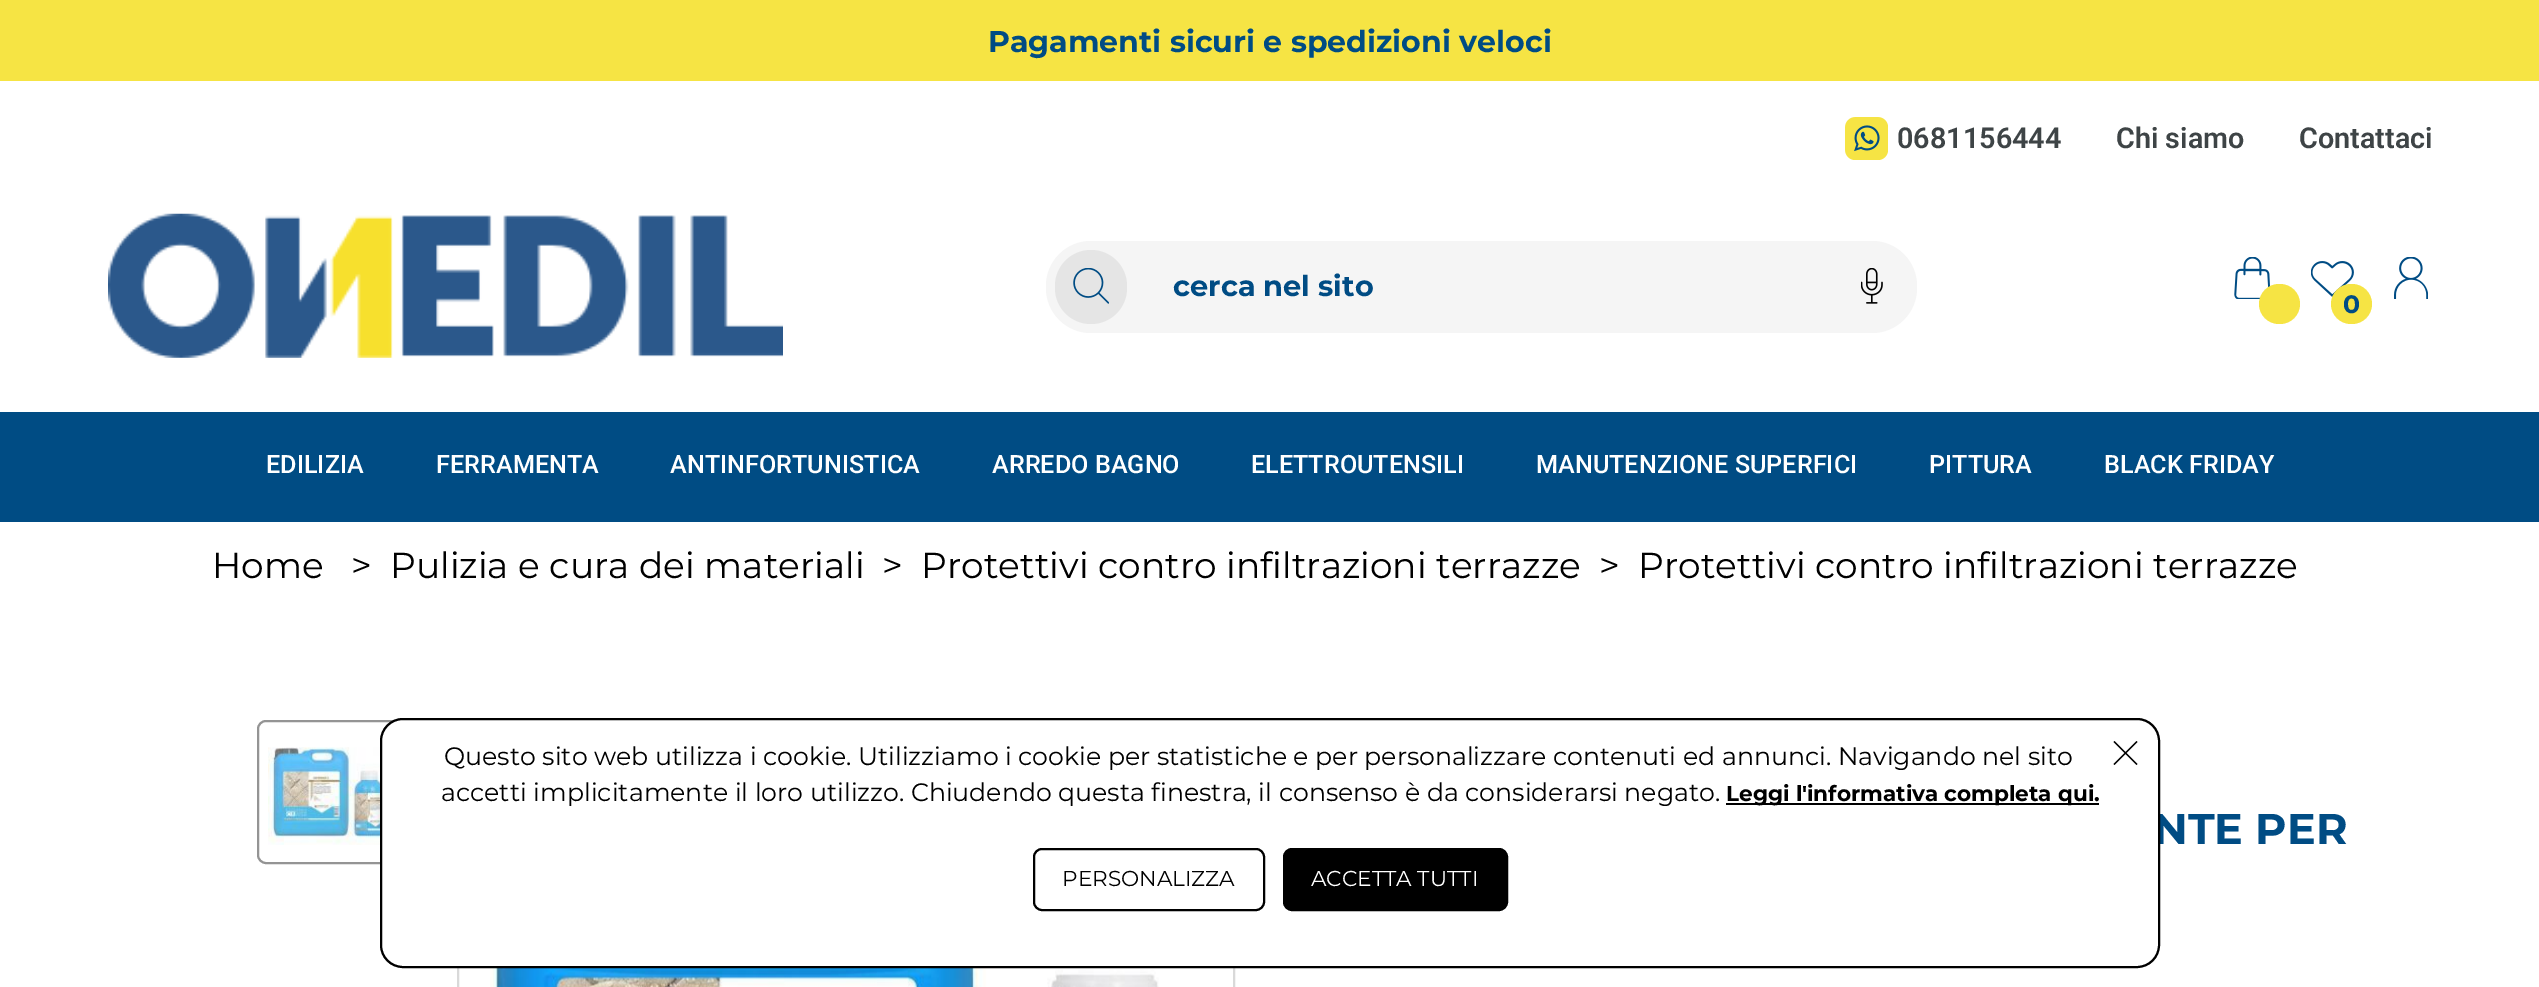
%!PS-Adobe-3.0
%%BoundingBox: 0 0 2539 987
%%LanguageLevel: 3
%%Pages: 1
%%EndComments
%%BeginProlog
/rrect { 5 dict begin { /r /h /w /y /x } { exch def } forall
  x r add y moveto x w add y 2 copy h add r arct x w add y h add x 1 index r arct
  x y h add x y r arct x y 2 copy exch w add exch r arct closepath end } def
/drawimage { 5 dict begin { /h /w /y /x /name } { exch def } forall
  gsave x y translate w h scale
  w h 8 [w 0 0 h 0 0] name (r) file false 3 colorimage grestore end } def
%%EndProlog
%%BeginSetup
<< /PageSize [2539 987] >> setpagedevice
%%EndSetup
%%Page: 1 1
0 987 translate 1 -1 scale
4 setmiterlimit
1 setgray
0 0 2539 987 rectfill
0.965 0.894 0.267 setrgbcolor
0 0 2539 81 rectfill
(images/1.raw) 1845 117 43 43 drawimage
(images/2.raw) 108 213 675 145 drawimage
0.961 setgray
1046 241 871 92 45 rrect fill
0.898 setgray
1055 250 72 74 36 rrect fill
(images/3.raw) 1073 268 36 36 drawimage
(images/4.raw) 1861 268 22 36 drawimage
(images/5.raw) 2234 257 36 42 drawimage
0.965 0.894 0.267 setrgbcolor
2259 284 41 40 20 rrect fill
(images/6.raw) 2394 257 34 42 drawimage
(images/7.raw) 2311 261 43 36 drawimage
2331 284 41 40 20 rrect fill
0 0.298 0.518 setrgbcolor
0 412 2539 110 rectfill
0.58 setgray
2 setlinewidth
258 721 142 142 8 rrect stroke
(images/8.raw) 268 747 112 98 drawimage
0.851 setgray
458 721 776 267 rectstroke
(images/9.raw) 490 968 669 19 drawimage
/Montserrat-Bold [30 0 0 -30 0 0] selectfont
0 0.298 0.518 setrgbcolor
988 52 moveto (Pagamenti sicuri e spedizioni veloci) show
/Roboto-SemiBold [28.75 0 0 -28.75 0 0] selectfont
0.243 0.267 0.275 setrgbcolor
1897 148 moveto (0681156444) show
2116 148 moveto (Chi siamo) show
2299 148 moveto (Contattaci) show
/Montserrat-Bold [28.75 0 0 -28.75 0 0] selectfont
0 0.298 0.518 setrgbcolor
1173 296 moveto (cerca nel sito) show
/Montserrat-Bold [25.2 0 0 -25.2 0 0] selectfont
2343 313 moveto (0) show
/Roboto-Medium [25.2 0 0 -25.2 0 0] selectfont
1 setgray
266 473 moveto (EDILIZIA) show
436 473 moveto (FERRAMENTA) show
670 473 moveto (ANTINFORTUNISTICA) show
992 473 moveto (ARREDO BAGNO) show
1251 473 moveto (ELETTROUTENSILI) show
1536 473 moveto (MANUTENZIONE SUPERFICI) show
1929 473 moveto (PITTURA) show
2104 473 moveto (BLACK FRIDAY) show
/Montserrat-Regular [36 0 0 -36 0 0] selectfont
0 setgray
212 578 moveto (Home) show
351 578 moveto (>) show
390 578 moveto (Pulizia e cura dei materiali) show
882 578 moveto (>) show
921 578 moveto (Protettivi contro infiltrazioni terrazze) show
1599 578 moveto (>) show
1638 578 moveto (Protettivi contro infiltrazioni terrazze) show
/Montserrat-Bold [43 0 0 -43 0 0] selectfont
0 0.298 0.518 setrgbcolor
2153 844 moveto (NTE PER) show
1 setgray
381 719 1778 248 22 rrect gsave fill grestore
0 setgray
stroke
/Montserrat-Regular [25.2 0 0 -25.2 0 0] selectfont
444 765 moveto (Questo sito web utilizza i cookie. Utilizziamo i cookie per statistiche e per personalizzare contenuti ed annunci. Navigando nel sito) show
1.1 setlinewidth
newpath 2114 741.5 moveto 2137 764.5 lineto 2137 741.5 moveto 2114 764.5 lineto stroke
441 801 moveto (accetti implicitamente il loro utilizzo. Chiudendo questa finestra, il consenso è da considerarsi negato.) show
1726 803 373 2 rectfill
/Montserrat-Bold [21.6 0 0 -21.6 0 0] selectfont
1726 801 moveto (Leggi l'informativa completa qui.) show
2 setlinewidth
1034 849 230 61 8 rrect stroke
/Montserrat-Regular [21.6 0 0 -21.6 0 0] selectfont
1062 886 moveto (PERSONALIZZA) show
1284 849 223 61 8 rrect gsave fill grestore
stroke
1 setgray
1311 886 moveto (ACCETTA TUTTI) show
showpage
%%EOF
